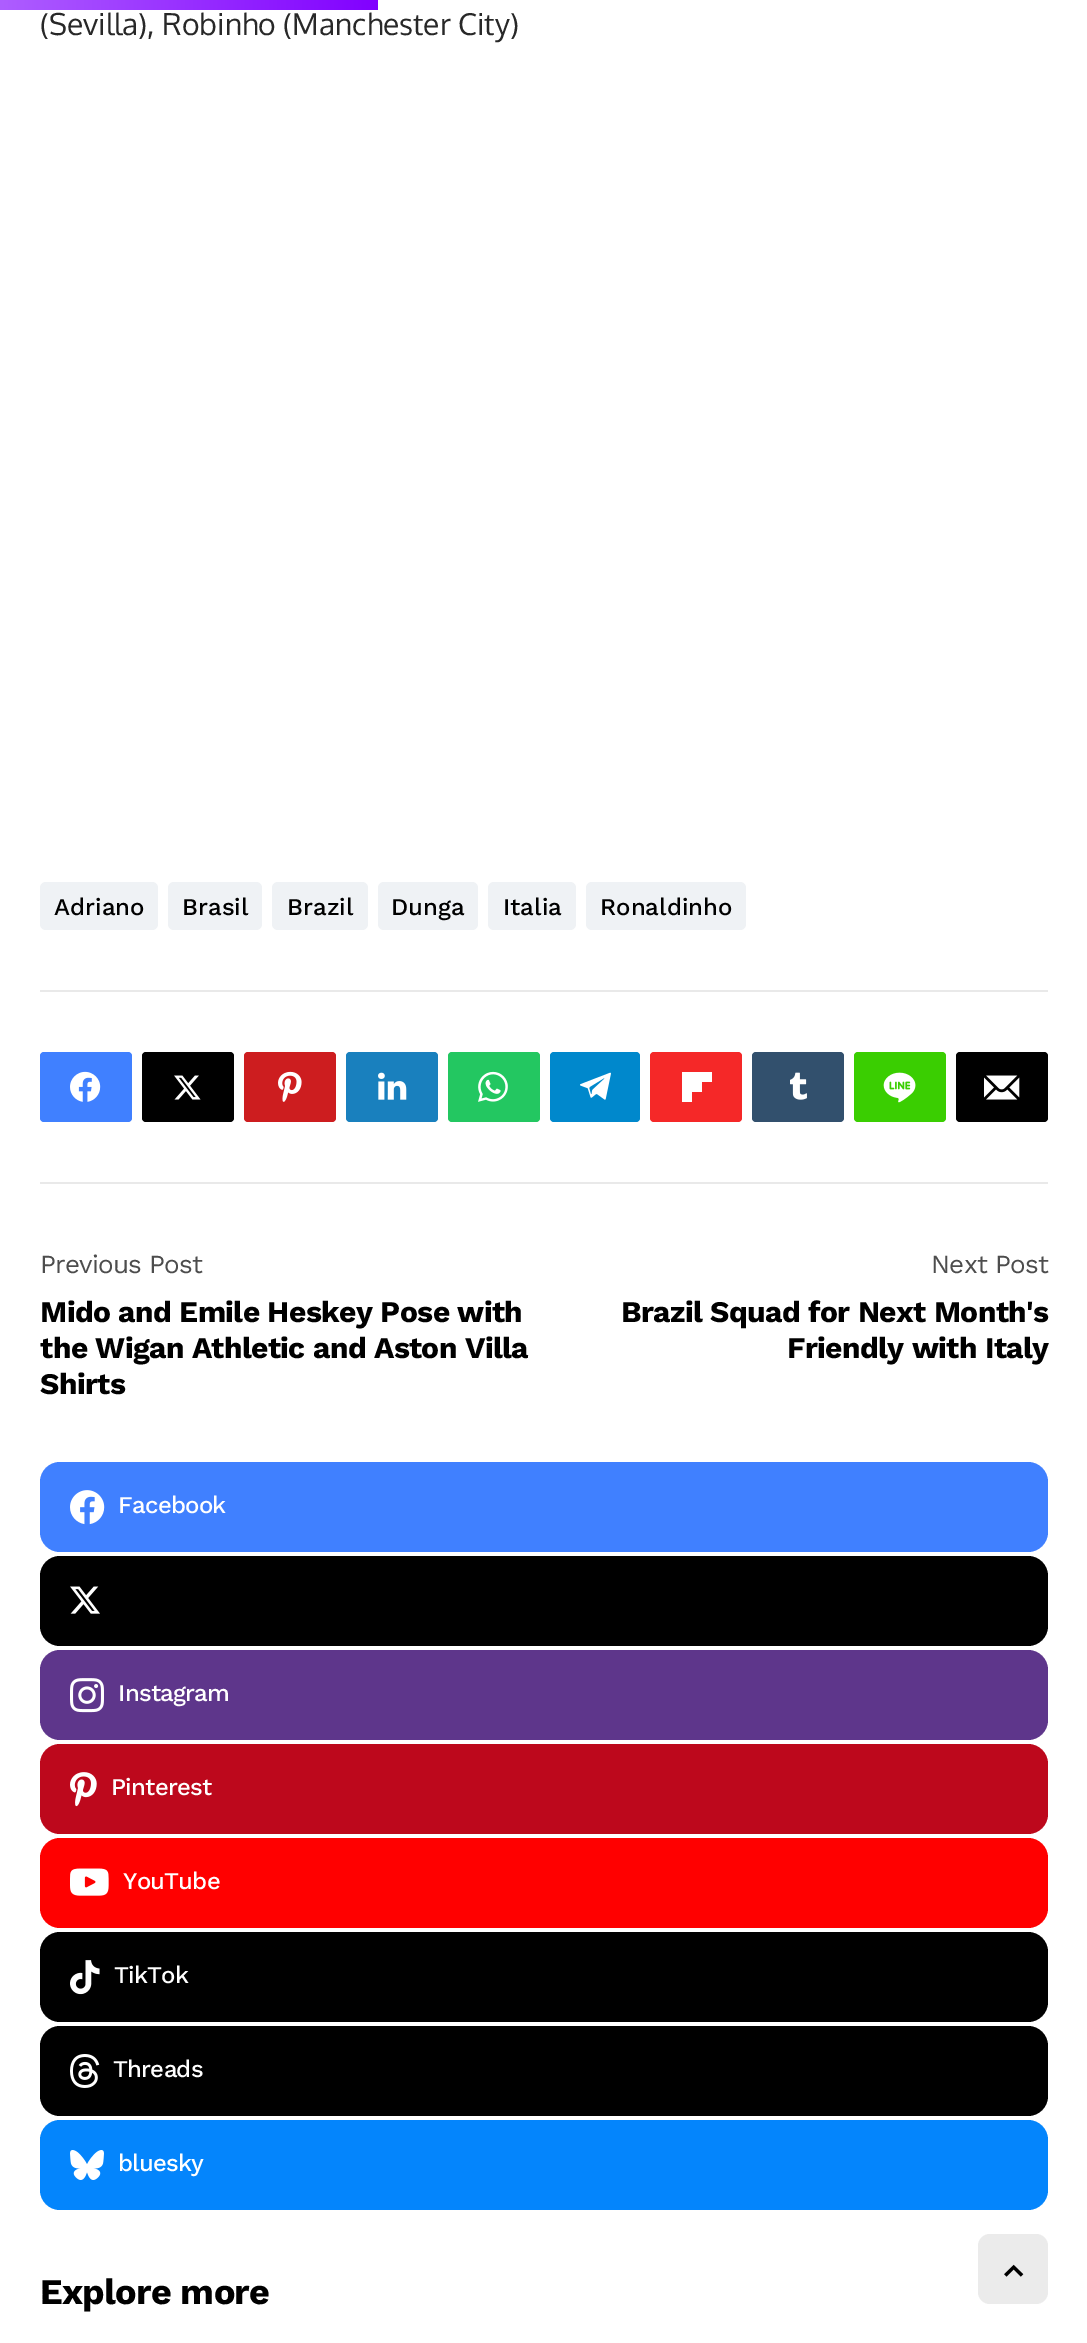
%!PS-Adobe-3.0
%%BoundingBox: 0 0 1087 2343
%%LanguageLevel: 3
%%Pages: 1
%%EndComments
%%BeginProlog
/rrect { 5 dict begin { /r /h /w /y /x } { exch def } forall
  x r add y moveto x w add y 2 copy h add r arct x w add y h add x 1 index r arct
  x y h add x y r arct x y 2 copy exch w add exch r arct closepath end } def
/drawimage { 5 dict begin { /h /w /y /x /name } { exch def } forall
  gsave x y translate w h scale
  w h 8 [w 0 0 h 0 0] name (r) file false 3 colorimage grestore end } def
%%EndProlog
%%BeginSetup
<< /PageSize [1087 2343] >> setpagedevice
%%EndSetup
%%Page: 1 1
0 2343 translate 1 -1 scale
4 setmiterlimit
1 setgray
0 0 1087 2343 rectfill
gsave newpath 0 0 moveto 378 0 lineto 378 10 lineto 0 10 lineto closepath clip newpath
<< /ShadingType 2 /ColorSpace /DeviceRGB /Coords [0 5 378 5] /Extend [true true] /Function << /FunctionType 2 /Domain [0 1] /C0 [0.682 0.369 1] /C1 [0.506 0 1] /N 1 >> >> shfill grestore
0.914 setgray
40 990 1008 2 rectfill
0.937 0.949 0.961 setrgbcolor
40 882 118 48 6 rrect fill
168 882 94 48 6 rrect fill
272 882 96 48 6 rrect fill
378 882 100 48 6 rrect fill
488 882 88 48 6 rrect fill
586 882 160 48 6 rrect fill
0.914 setgray
40 1182 1008 2 rectfill
0.251 0.502 1 setrgbcolor
40 1052 92 70 4 rrect fill
(images/1.raw) 70 1071 31 31 drawimage
0 setgray
142 1052 92 70 4 rrect fill
(images/2.raw) 174 1075 27 25 drawimage
0.804 0.114 0.122 setrgbcolor
244 1052 92 70 4 rrect fill
(images/3.raw) 278 1071 24 31 drawimage
0.098 0.502 0.745 setrgbcolor
346 1052 92 70 4 rrect fill
(images/4.raw) 378 1072 29 28 drawimage
0.137 0.78 0.38 setrgbcolor
448 1052 92 70 4 rrect fill
(images/5.raw) 478 1071 30 31 drawimage
0 0.533 0.8 setrgbcolor
550 1052 90 70 4 rrect fill
(images/6.raw) 580 1072 31 28 drawimage
0.961 0.157 0.157 setrgbcolor
650 1052 92 70 4 rrect fill
1 setgray
newpath 697 1072 moveto 712 1072 lineto 712 1082 lineto 702 1082 lineto 702 1092 lineto 692 1092 lineto 692 1102 lineto 682 1102 lineto 682 1072 lineto closepath fill
0.196 0.314 0.427 setrgbcolor
752 1052 92 70 4 rrect fill
(images/7.raw) 790 1072 17 28 drawimage
0.227 0.808 0.004 setrgbcolor
854 1052 92 70 4 rrect fill
(images/8.raw) 883 1072 33 31 drawimage
(images/9.raw) 889 1081 22 9 drawimage
0 setgray
956 1052 92 70 4 rrect fill
(images/10.raw) 984 1075 36 25 drawimage
0.251 0.502 1 setrgbcolor
40 1462 1008 90 20 rrect fill
(images/11.raw) 70 1490 35 35 drawimage
0 setgray
40 1556 1008 90 20 rrect fill
(images/12.raw) 70 1586 30 28 drawimage
0.369 0.212 0.545 setrgbcolor
40 1650 1008 90 20 rrect fill
(images/13.raw) 70 1678 34 35 drawimage
0.741 0.031 0.11 setrgbcolor
40 1744 1008 90 20 rrect fill
(images/14.raw) 70 1772 27 35 drawimage
1 0 0 setrgbcolor
40 1838 1008 90 20 rrect fill
(images/15.raw) 70 1868 39 28 drawimage
0 setgray
40 1932 1008 90 20 rrect fill
(images/16.raw) 70 1960 30 35 drawimage
40 2026 1008 90 20 rrect fill
(images/17.raw) 70 2054 30 34 drawimage
0.016 0.522 0.988 setrgbcolor
40 2120 1008 90 20 rrect fill
(images/18.raw) 70 2150 34 30 drawimage
0.922 setgray
978 2234 70 70 12 rrect fill
(images/19.raw) 1004 2264 20 13 drawimage
/Oxygen-Regular [30 0 0 -30 0 0] selectfont
0.157 setgray
40 35 moveto (\(Sevilla\), Robinho \(Manchester City\)) show
/WorkSans-Medium [24 0 0 -24 0 0] selectfont
0 setgray
54 915 moveto (Adriano) show
182 915 moveto (Brasil) show
287 915 moveto (Brazil) show
391 915 moveto (Dunga) show
503 915 moveto (Italia) show
600 915 moveto (Ronaldinho) show
/WorkSans-Regular [26 0 0 -26 0 0] selectfont
0.302 setgray
40 1273 moveto -0.75 0 (Previous Post) ashow
/WorkSans-Bold [30 0 0 -30 0 0] selectfont
0 setgray
40 1322 moveto -0.6 0 (Mido and Emile Heskey Pose with) ashow
40 1358 moveto -0.6 0 (the Wigan Athletic and Aston Villa) ashow
40 1394 moveto -0.6 0 (Shirts) ashow
/WorkSans-Regular [26 0 0 -26 0 0] selectfont
0.302 setgray
931 1273 moveto -0.75 0 (Next Post) ashow
/WorkSans-Bold [30 0 0 -30 0 0] selectfont
0 setgray
621 1322 moveto -0.6 0 (Brazil Squad for Next Month's) ashow
787 1358 moveto -0.6 0 (Friendly with Italy) ashow
/WorkSans-Medium [24 0 0 -24 0 0] selectfont
1 setgray
118 1513 moveto -0.75 0 (Facebook) ashow
118 1701 moveto -0.75 0 (Instagram) ashow
111 1795 moveto -0.75 0 (Pinterest) ashow
123 1889 moveto -0.75 0 (YouTube) ashow
114 1983 moveto -0.75 0 (TikTok) ashow
113 2077 moveto -0.75 0 (Threads) ashow
118 2171 moveto -0.75 0 (bluesky) ashow
/WorkSans-Bold [36 0 0 -36 0 0] selectfont
0 setgray
40 2304 moveto -0.75 0 (Explore more) ashow
showpage
%%EOF
